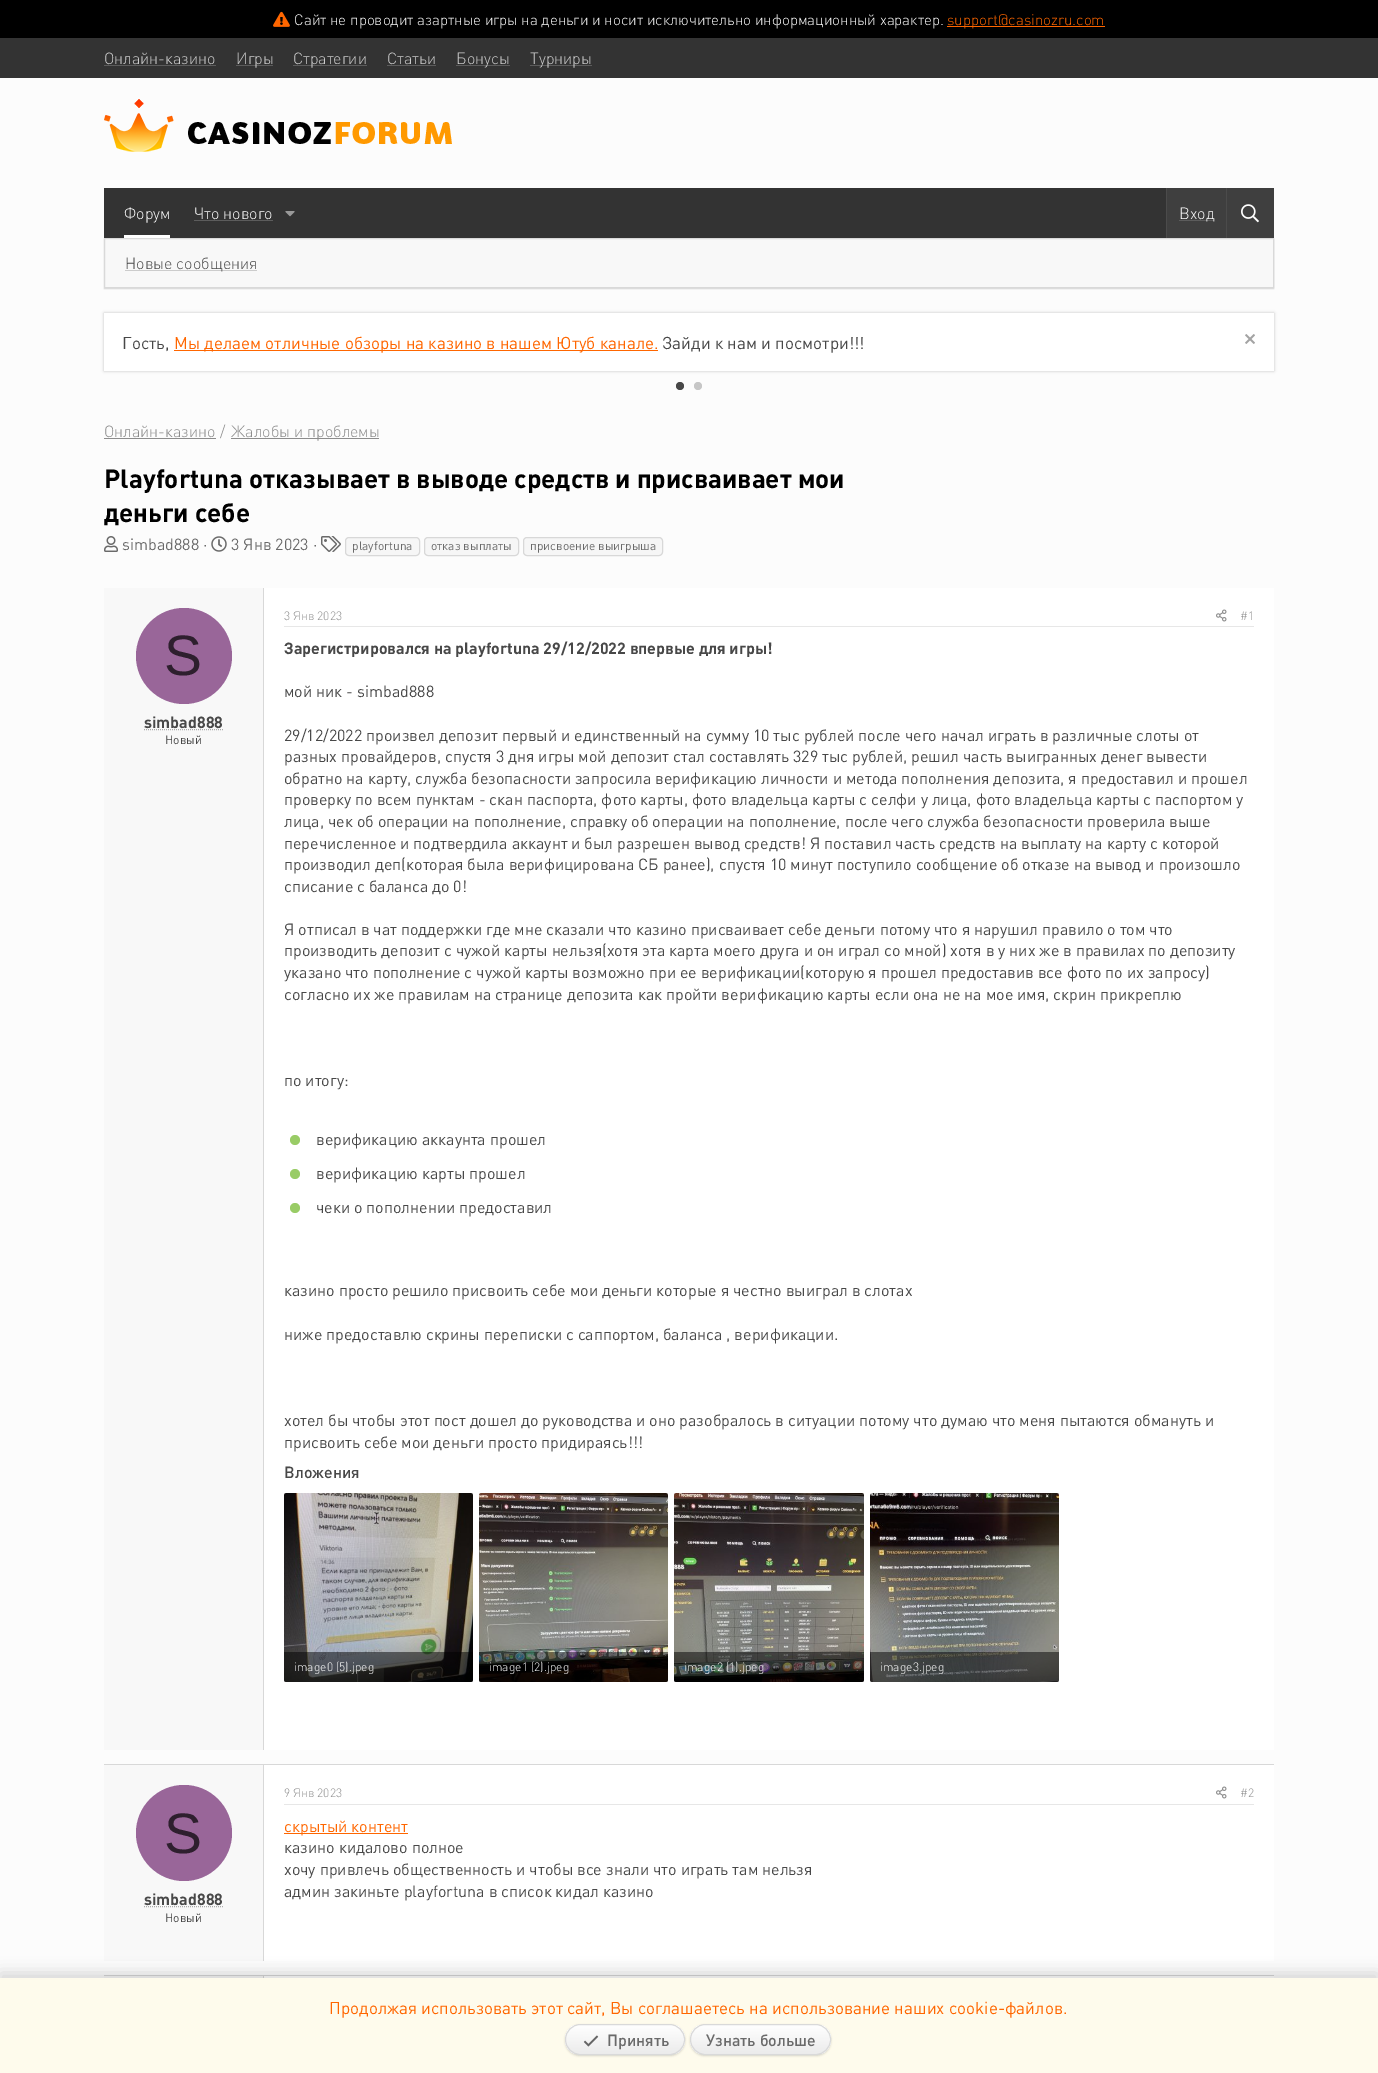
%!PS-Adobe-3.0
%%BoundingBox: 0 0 1378 2073
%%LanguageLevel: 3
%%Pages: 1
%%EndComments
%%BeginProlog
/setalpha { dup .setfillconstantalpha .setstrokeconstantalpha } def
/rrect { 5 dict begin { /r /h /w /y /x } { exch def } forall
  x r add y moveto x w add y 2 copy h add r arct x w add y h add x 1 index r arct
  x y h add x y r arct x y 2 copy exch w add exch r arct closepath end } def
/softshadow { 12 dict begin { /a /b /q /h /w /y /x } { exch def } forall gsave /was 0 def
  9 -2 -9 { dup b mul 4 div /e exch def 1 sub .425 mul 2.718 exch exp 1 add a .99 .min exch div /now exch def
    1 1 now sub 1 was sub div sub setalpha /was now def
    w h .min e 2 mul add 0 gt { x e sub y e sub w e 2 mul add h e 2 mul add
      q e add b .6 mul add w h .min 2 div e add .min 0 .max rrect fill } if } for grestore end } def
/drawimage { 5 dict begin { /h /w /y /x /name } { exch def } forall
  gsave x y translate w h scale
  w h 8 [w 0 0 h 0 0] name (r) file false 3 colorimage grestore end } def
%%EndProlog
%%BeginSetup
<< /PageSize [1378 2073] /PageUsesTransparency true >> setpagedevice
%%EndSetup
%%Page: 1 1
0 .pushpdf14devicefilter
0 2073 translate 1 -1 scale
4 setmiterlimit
0.988 setgray
0 0 1378 2073 rectfill
0 setgray
0 0 1378 38 rectfill
(images/1.raw) 273 11 17 16 drawimage
1 0.4 0 setrgbcolor
947 26 158 1 rectfill
0.2 setgray
0 38 1378 40 rectfill
0.361 setgray
104 65 112 1 rectfill
236 65 37 1 rectfill
293 65 74 1 rectfill
387 65 49 1 rectfill
456 65 54 1 rectfill
530 65 62 1 rectfill
(images/2.raw) 104 99 348 53 drawimage
0.2 setgray
104 188 1062 50 rectfill
1 setgray
124 235 46 3 rectfill
0.361 setgray
194 220 79 1 rectfill
(images/3.raw) 285 211 10 6 drawimage
0.247 setgray
1167 188 59 50 rectfill
0.294 setgray
1166 188 1 50 rectfill
0.361 setgray
1179 220 35 1 rectfill
0.247 setgray
1227 188 47 50 rectfill
0.294 setgray
1226 188 1 50 rectfill
(images/4.raw) 1241 204 18 19 drawimage
0.09 setgray
104 239 1170 50 0 0.5 0.15 softshadow
0.973 setgray
newpath 104.5 238.5 moveto 1273.5 238.5 lineto 1273.5 287.5 lineto 104.5 287.5 lineto closepath gsave fill grestore
0.851 setgray
stroke
0.8 setgray
125 270 132 1 rectfill
0 setgray
104 313 1170 58 0 1.5 0.2 softshadow
1 setgray
104 313 1170 58 rectfill
1 0.4 0 setrgbcolor
174 350 484 1 rectfill
(images/5.raw) 1245 334 10 10 drawimage
0.282 setgray
newpath 680 386 4 0 360 arc closepath fill
0.776 setgray
newpath 698 386 4 0 360 arc closepath fill
0.549 setgray
104 438 112 1 rectfill
231 438 148 1 rectfill
(images/6.raw) 104 536 14 16 drawimage
(images/7.raw) 211 536 16 16 drawimage
(images/8.raw) 321 536 20 16 drawimage
0.965 setgray
345.5 537.5 74 18 3.5 rrect gsave fill grestore
0.847 setgray
stroke
0.965 setgray
424.5 537.5 94 18 3.5 rrect gsave fill grestore
0.847 setgray
stroke
0.965 setgray
523.5 537.5 139 18 3.5 rrect gsave fill grestore
0.847 setgray
stroke
1 setgray
264 588 1010 1162 rectfill
0.973 setgray
104 588 159 1162 rectfill
0.847 setgray
263 588 1 1162 rectfill
0.6 0.4 0.6 setrgbcolor
newpath 184 656 48 0 360 arc closepath fill
0.667 setgray
[1 1] 0 setdash
newpath 144 729.5 moveto 223 729.5 lineto stroke
0.906 setgray
284 626 970 1 rectfill
(images/9.raw) 1216 609 11 13 drawimage
0.6 0.8 0.4 setrgbcolor
newpath 295 1140 5 0 360 arc closepath fill
newpath 295 1174 5 0 360 arc closepath fill
newpath 295 1208 5 0 360 arc closepath fill
(images/10.raw) 284 1493 189 189 drawimage
0.5 setalpha
0 setgray
newpath 284 1652 moveto 473 1652 lineto 473 1680 lineto 473 1681 472 1682 471 1682 curveto 286 1682 lineto 285 1682 284 1681 284 1680 curveto closepath fill
1 setalpha
(images/11.raw) 479 1493 189 189 drawimage
0.5 setalpha
newpath 479 1652 moveto 668 1652 lineto 668 1680 lineto 668 1681 667 1682 666 1682 curveto 481 1682 lineto 480 1682 479 1681 479 1680 curveto closepath fill
1 setalpha
(images/12.raw) 674 1493 190 189 drawimage
0.5 setalpha
newpath 674 1652 moveto 864 1652 lineto 864 1680 lineto 864 1681 863 1682 862 1682 curveto 676 1682 lineto 675 1682 674 1681 674 1680 curveto closepath fill
1 setalpha
(images/13.raw) 870 1493 189 189 drawimage
0.5 setalpha
newpath 870 1652 moveto 1059 1652 lineto 1059 1680 lineto 1059 1681 1058 1682 1057 1682 curveto 872 1682 lineto 871 1682 870 1681 870 1680 curveto closepath fill
1 setalpha
1 setgray
264 1765 1010 196 rectfill
0.847 setgray
104 1764 1170 1 rectfill
0.973 setgray
104 1765 159 196 rectfill
0.847 setgray
263 1765 1 196 rectfill
0.6 0.4 0.6 setrgbcolor
newpath 184 1833 48 0 360 arc closepath fill
0.667 setgray
newpath 144 1906.5 moveto 223 1906.5 lineto stroke
0.906 setgray
284 1804 970 1 rectfill
(images/9.raw) 1216 1786 11 13 drawimage
1 0.4 0 setrgbcolor
284 1833 124 1 rectfill
1 setgray
264 1976 1010 2 rectfill
0.847 setgray
104 1975 1170 1 rectfill
0.973 setgray
104 1976 159 2 rectfill
0.847 setgray
263 1976 1 2 rectfill
0 setgray
0 1973 1378 95 0 7.5 0.15 softshadow
0.996 0.984 0.925 setrgbcolor
0 1978 1378 95 rectfill
0 setgray
565 2025 120 31 15.5 1 0.15 softshadow
gsave
565 2024 120 31 15.5 rrect clip newpath
gsave newpath 565 2025 moveto 685 2025 lineto 685 2054 lineto 565 2054 lineto closepath clip newpath
<< /ShadingType 2 /ColorSpace /DeviceRGB /Coords [625 2025 625 2054] /Extend [true true] /Function << /FunctionType 2 /Domain [0 1] /C0 [1 1 1] /C1 [0.922 0.922 0.922] /N 1 >> >> shfill grestore
grestore
0.851 setgray
[] 0 setdash
565.5 2024.5 119 30 15 rrect stroke
(images/14.raw) 583 2035 16 12 drawimage
0 setgray
690 2025 141 31 15.5 1 0.15 softshadow
gsave
690 2024 141 31 15.5 rrect clip newpath
gsave newpath 690 2025 moveto 831 2025 lineto 831 2054 lineto 690 2054 lineto closepath clip newpath
<< /ShadingType 2 /ColorSpace /DeviceRGB /Coords [761 2025 761 2054] /Extend [true true] /Function << /FunctionType 2 /Domain [0 1] /C0 [1 1 1] /C1 [0.922 0.922 0.922] /N 1 >> >> shfill grestore
grestore
0.851 setgray
690.5 2024.5 140 30 15 rrect stroke
/DIN-Light [15 0 0 -15 0 0] selectfont
1 setgray
294 25 moveto (Сайт не проводит азартные игры на деньги и носит исключительно информационный характер.) show
1 0.4 0 setrgbcolor
947 25 moveto (support@casinozru.com) show
/DIN-Light [16 0 0 -16 0 0] selectfont
0.8 setgray
104 64 moveto (Онлайн-казино) show
236 64 moveto (Игры) show
293 64 moveto (Стратегии) show
387 64 moveto (Статьи) show
456 64 moveto (Бонусы) show
530 64 moveto (Турниры) show
1 setgray
124 219 moveto (Форум) show
194 219 moveto (Что нового) show
1179 219 moveto (Вход) show
0.282 setgray
125 269 moveto (Новые сообщения) show
/DIN-Regular [17 0 0 -17 0 0] selectfont
122 349 moveto (Гость,) show
1 0.4 0 setrgbcolor
174 349 moveto (Мы делаем отличные обзоры на казино в нашем Ютуб канале.) show
0.282 setgray
662 349 moveto (Зайди к нам и посмотри!!!) show
/DIN-Light [16 0 0 -16 0 0] selectfont
0.549 setgray
104 437 moveto (Онлайн-казино) show
220 437 moveto (/) show
231 437 moveto (Жалобы и проблемы) show
/DIN-Bold [26 0 0 -26 0 0] selectfont
0 setgray
104 488 moveto (Playfortuna отказывает в выводе средств и присваивает мои) show
104 522 moveto (деньги себе) show
/DIN-Regular [16 0 0 -16 0 0] selectfont
0.416 setgray
122 550 moveto (simbad888 ·) show
231 550 moveto (3 Янв 2023 ·) show
/DIN-Regular [12 0 0 -12 0 0] selectfont
352 550 moveto (playfortuna) show
431 550 moveto (отказ выплаты) show
530 550 moveto (присвоение выигрыша) show
/LiberationSans-Regular [57 0 0 -57 0 0] selectfont
0.18 0.122 0.18 setrgbcolor
164 675 moveto (S) show
/DIN-Bold [16 0 0 -16 0 0] selectfont
0.282 setgray
144 728 moveto (simbad888) show
/DIN-Regular [12 0 0 -12 0 0] selectfont
165 744 moveto (Новый) show
/DIN-Light [12 0 0 -12 0 0] selectfont
0.549 setgray
284 620 moveto (3 Янв 2023) show
1240 620 moveto (#1) show
/DIN-Bold [16 0 0 -16 0 0] selectfont
0.282 setgray
284 654 moveto (Зарегистрировался на playfortuna 29/12/2022 впервые для игры!) show
/DIN-Regular [16 0 0 -16 0 0] selectfont
284 697 moveto (мой ник - simbad888) show
284 741 moveto (29/12/2022 произвел депозит первый и единственный на сумму 10 тыс рублей после чего начал играть в различные слоты от) show
284 762 moveto (разных провайдеров, спустя 3 дня игры мой депозит стал составлять 329 тыс рублей, решил часть выигранных денег вывести) show
284 784 moveto (обратно на карту, служба безопасности запросила верификацию личности и метода пополнения депозита, я предоставил и прошел) show
284 805 moveto (проверку по всем пунктам - скан паспорта, фото карты, фото владельца карты с селфи у лица, фото владельца карты с паспортом у) show
284 827 moveto (лица, чек об операции на пополнение, справку об операции на пополнение, после чего служба безопасности проверила выше) show
284 849 moveto (перечисленное и подтвердила аккаунт и был разрешен вывод средств! Я поставил часть средств на выплату на карту с которой) show
284 870 moveto (производил деп\(которая была верифицирована СБ ранее\), спустя 10 минут поступило сообщение об отказе на вывод и произошло) show
284 892 moveto (списание с баланса до 0!) show
284 935 moveto (Я отписал в чат поддержки где мне сказали что казино присваивает себе деньги потому что я нарушил правило о том что) show
284 956 moveto (производить депозит с чужой карты нельзя\(хотя эта карта моего друга и он играл со мной\) хотя в у них же в правилах по депозиту) show
284 978 moveto (указано что пополнение с чужой карты возможно при ее верификации\(которую я прошел предоставив все фото по их запросу\)) show
284 1000 moveto (согласно их же правилам на странице депозита как пройти верификацию карты если она не на мое имя, скрин прикреплю) show
284 1086 moveto (по итогу:) show
316 1145 moveto (верификацию аккаунта прошел) show
316 1179 moveto (верификацию карты прошел) show
316 1213 moveto (чеки о пополнении предоставил) show
284 1296 moveto (казино просто решило присвоить себе мои деньги которые я честно выиграл в слотах) show
284 1340 moveto (ниже предоставлю скрины переписки с саппортом, баланса , верификации.) show
284 1426 moveto (хотел бы чтобы этот пост дошел до руководства и оно разобралось в ситуации потому что думаю что меня пытаются обмануть и) show
284 1448 moveto (присвоить себе мои деньги просто придираясь!!!) show
/DIN-Medium [16 0 0 -16 0 0] selectfont
284 1478 moveto (Вложения) show
/DIN-Light [12 0 0 -12 0 0] selectfont
1 setgray
294 1671 moveto (image0 \(5\).jpeg) show
489 1671 moveto (image1 \(2\).jpeg) show
684 1671 moveto (image2 \(1\).jpeg) show
880 1671 moveto (image3.jpeg) show
/LiberationSans-Regular [57 0 0 -57 0 0] selectfont
0.18 0.122 0.18 setrgbcolor
164 1853 moveto (S) show
/DIN-Bold [16 0 0 -16 0 0] selectfont
0.282 setgray
144 1905 moveto (simbad888) show
/DIN-Regular [12 0 0 -12 0 0] selectfont
165 1922 moveto (Новый) show
/DIN-Light [12 0 0 -12 0 0] selectfont
0.549 setgray
284 1797 moveto (9 Янв 2023) show
1240 1797 moveto (#2) show
/DIN-Regular [16 0 0 -16 0 0] selectfont
1 0.4 0 setrgbcolor
284 1832 moveto (скрытый контент) show
0.282 setgray
284 1853 moveto (казино кидалово полное) show
284 1875 moveto (хочу привлечь общественность и чтобы все знали что играть там нельзя) show
284 1897 moveto (админ закиньте playfortuna в список кидал казино) show
/DIN-Regular [17 0 0 -17 0 0] selectfont
1 0.4 0 setrgbcolor
329 2014 moveto (Продолжая использовать этот сайт, Вы соглашаетесь на использование наших cookie-файлов.) show
/DIN-Medium [16 0 0 -16 0 0] selectfont
0.416 setgray
607 2046 moveto (Принять) show
706 2046 moveto (Узнать больше) show
.poppdf14devicefilter showpage
%%EOF
